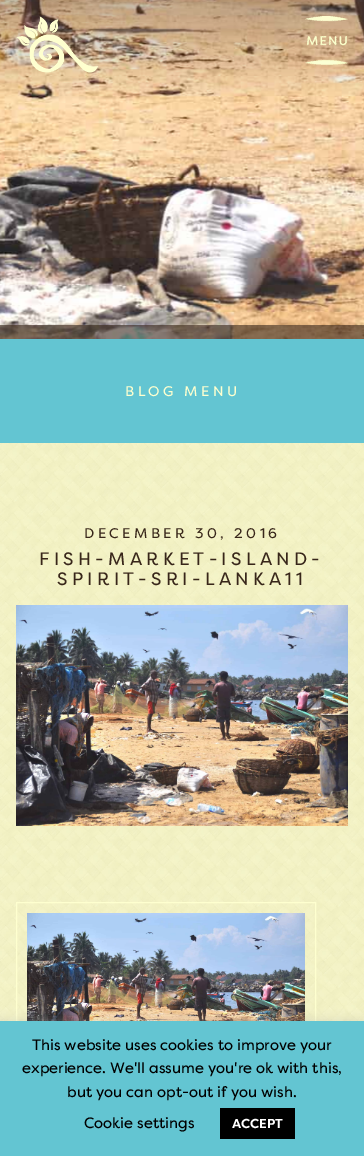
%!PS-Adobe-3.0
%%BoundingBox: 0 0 364 1156
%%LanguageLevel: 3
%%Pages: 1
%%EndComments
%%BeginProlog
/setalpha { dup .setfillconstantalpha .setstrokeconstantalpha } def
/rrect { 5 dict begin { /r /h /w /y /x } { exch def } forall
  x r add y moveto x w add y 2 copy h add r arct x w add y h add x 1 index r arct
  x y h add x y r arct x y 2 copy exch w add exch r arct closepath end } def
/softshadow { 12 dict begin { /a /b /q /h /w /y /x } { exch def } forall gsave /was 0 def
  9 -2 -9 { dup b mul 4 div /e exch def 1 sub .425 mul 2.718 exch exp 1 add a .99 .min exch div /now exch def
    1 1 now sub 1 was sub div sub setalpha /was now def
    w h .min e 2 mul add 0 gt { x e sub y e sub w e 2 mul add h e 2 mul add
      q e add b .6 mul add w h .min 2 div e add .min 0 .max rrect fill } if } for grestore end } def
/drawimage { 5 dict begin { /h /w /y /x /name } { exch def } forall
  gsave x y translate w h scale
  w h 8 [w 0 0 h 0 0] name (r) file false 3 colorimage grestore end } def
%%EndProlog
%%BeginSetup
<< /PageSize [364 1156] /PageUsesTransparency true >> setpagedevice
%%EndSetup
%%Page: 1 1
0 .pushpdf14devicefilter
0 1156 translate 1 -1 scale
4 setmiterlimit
1 setgray
0 0 364 1156 rectfill
(images/1.raw) 0 443 364 578 drawimage
(images/5.raw) 0 0 364 339 drawimage
(images/2.raw) 0 0 364 96 drawimage
(images/3.raw) 16 16 82 57 drawimage
(images/4.raw) 305 16 43 50 drawimage
0.6 setalpha
0.22 0.149 0.102 setrgbcolor
0 325 364 14 rectfill
1 setalpha
0.388 0.773 0.824 setrgbcolor
0 339 364 104 rectfill
(images/6.raw) 16 605 332 221 drawimage
0.996 1 0.812 setrgbcolor
16.5 902.5 299 205 rectstroke
(images/7.raw) 27 913 278 108 drawimage
0.675 0.671 0.671 setrgbcolor
0 1020 364 135 0 5 0.3 softshadow
0.388 0.773 0.824 setrgbcolor
0 1021 364 135 rectfill
0 setgray
220 1108 75 31 rectfill
/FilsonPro-Regular [14 0 0 -14 0 0] selectfont
0.996 1 0.812 setrgbcolor
125 396 moveto 3.4 0 (BLOG MENU) ashow
0.22 0.149 0.102 setrgbcolor
84 538 moveto 3.4 0 (DECEMBER 30, 2016) ashow
/FilsonPro-Regular [18 0 0 -18 0 0] selectfont
39 565 moveto 4.3 0 (FISH-MARKET-ISLAND-) ashow
57 585 moveto 4.3 0 (SPIRIT-SRI-LANKA11) ashow
/FilsonPro-Regular [15 0 0 -15 0 0] selectfont
0 setgray
32 1050 moveto (This website uses cookies to improve your) show
22 1073 moveto (experience. We'll assume you're ok with this,) show
67 1097 moveto (but you can opt-out if you wish.) show
84 1128 moveto (Cookie settings) show
/FilsonPro-Bold [13 0 0 -13 0 0] selectfont
1 setgray
232 1128 moveto (ACCEPT) show
.poppdf14devicefilter showpage
%%EOF
